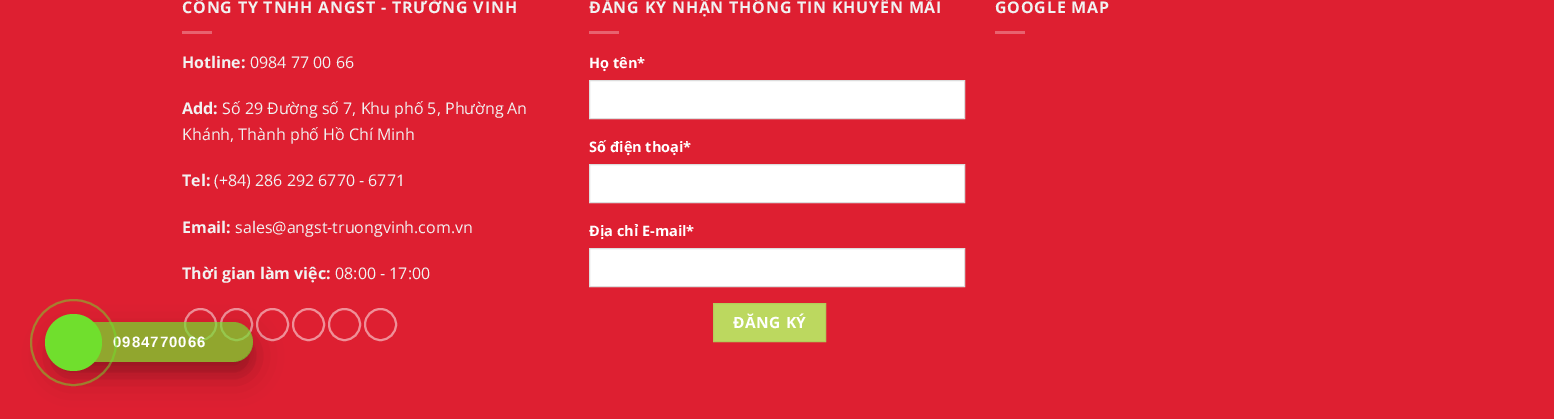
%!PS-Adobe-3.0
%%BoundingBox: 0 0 1554 419
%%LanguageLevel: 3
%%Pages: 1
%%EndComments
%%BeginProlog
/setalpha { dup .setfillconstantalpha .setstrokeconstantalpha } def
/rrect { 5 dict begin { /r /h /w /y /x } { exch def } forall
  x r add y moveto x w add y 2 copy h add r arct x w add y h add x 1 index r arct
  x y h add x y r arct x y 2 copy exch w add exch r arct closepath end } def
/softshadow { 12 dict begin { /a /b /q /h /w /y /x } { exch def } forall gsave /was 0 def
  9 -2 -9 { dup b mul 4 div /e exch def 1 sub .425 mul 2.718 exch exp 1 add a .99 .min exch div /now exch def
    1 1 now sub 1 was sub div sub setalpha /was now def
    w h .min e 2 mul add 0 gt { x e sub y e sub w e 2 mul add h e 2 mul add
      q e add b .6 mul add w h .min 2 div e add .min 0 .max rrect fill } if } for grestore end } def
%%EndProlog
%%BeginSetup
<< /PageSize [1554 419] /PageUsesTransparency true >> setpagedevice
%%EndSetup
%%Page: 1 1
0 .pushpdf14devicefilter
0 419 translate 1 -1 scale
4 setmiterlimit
0.871 0.122 0.192 setrgbcolor
0 0 1554 419 rectfill
0.91 0.384 0.435 setrgbcolor
182 31 30 3 rectfill
0.937 0.561 0.596 setrgbcolor
2 setlinewidth
newpath 200.5 324.5 15.5 0 360 arc closepath stroke
newpath 236.5 324.5 15.5 0 360 arc closepath stroke
newpath 272.5 324.5 15.5 0 360 arc closepath stroke
newpath 308.5 324.5 15.5 0 360 arc closepath stroke
newpath 344.5 324.5 15.5 0 360 arc closepath stroke
newpath 380.5 324.5 15.5 0 360 arc closepath stroke
0.91 0.384 0.435 setrgbcolor
589 31 30 3 rectfill
1 setgray
newpath 589.5 80.5 moveto 964.5 80.5 lineto 964.5 118.5 lineto 589.5 118.5 lineto closepath gsave fill grestore
0.867 setgray
1 setlinewidth
stroke
1 setgray
newpath 589.5 164.5 moveto 964.5 164.5 lineto 964.5 202.5 lineto 589.5 202.5 lineto closepath gsave fill grestore
0.867 setgray
stroke
1 setgray
newpath 589.5 248.5 moveto 964.5 248.5 lineto 964.5 286.5 lineto 589.5 286.5 lineto closepath gsave fill grestore
0.867 setgray
stroke
0.737 0.847 0.373 setrgbcolor
newpath 713.5 303.5 moveto 825.5 303.5 lineto 825.5 341.5 lineto 713.5 341.5 lineto closepath gsave fill grestore
0.702 0.804 0.353 setrgbcolor
stroke
0.91 0.384 0.435 setrgbcolor
995 31 30 3 rectfill
gsave
newpath 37 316 moveto 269 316 lineto 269 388 lineto 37 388 lineto closepath 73 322 moveto 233 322 lineto 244 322 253 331 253 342 curveto 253 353 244 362 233 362 curveto 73 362 lineto 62 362 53 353 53 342 curveto 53 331 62 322 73 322 curveto closepath eoclip newpath
0 setgray
53 332 200 40 20 5 0.1 softshadow
grestore
gsave
newpath 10 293 moveto 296 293 lineto 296 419 lineto 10 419 lineto closepath 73 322 moveto 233 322 lineto 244 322 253 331 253 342 curveto 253 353 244 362 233 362 curveto 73 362 lineto 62 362 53 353 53 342 curveto 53 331 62 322 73 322 curveto closepath eoclip newpath
0 setgray
53 336 200 40 20 14 0.25 softshadow
grestore
0.7 setalpha
0.439 0.875 0.176 setrgbcolor
53 322 200 40 20 rrect fill
/OpenSans-Bold [16 0 0 -16 0 0] selectfont
1 setalpha
0.945 setgray
182 13 moveto 0.8 0 (CÔNG TY TNHH ANGST - TRƯỜNG VINH) ashow
182 68 moveto (Hotline:) show
/OpenSans-Regular [16 0 0 -16 0 0] selectfont
250 68 moveto (0984 77 00 66) show
/OpenSans-Bold [16 0 0 -16 0 0] selectfont
182 114 moveto (Add:) show
/OpenSans-Regular [16 0 0 -16 0 0] selectfont
222 114 moveto (Số 29 Đường số 7, Khu phố 5, Phường An) show
182 140 moveto (Khánh, Thành phố Hồ Chí Minh) show
/OpenSans-Bold [16 0 0 -16 0 0] selectfont
182 186 moveto (Tel:) show
/OpenSans-Regular [16 0 0 -16 0 0] selectfont
214 186 moveto (\(+84\) 286 292 6770 - 6771) show
/OpenSans-Bold [16 0 0 -16 0 0] selectfont
182 233 moveto (Email:) show
/OpenSans-Regular [16 0 0 -16 0 0] selectfont
235 233 moveto (sales@angst-truongvinh.com.vn) show
/OpenSans-Bold [16 0 0 -16 0 0] selectfont
182 279 moveto (Thời gian làm việc:) show
/OpenSans-Regular [16 0 0 -16 0 0] selectfont
335 279 moveto (08:00 - 17:00) show
/OpenSans-Bold [16 0 0 -16 0 0] selectfont
589 13 moveto 0.8 0 (ĐĂNG KÝ NHẬN THÔNG TIN KHUYẾN MÃI) ashow
/OpenSans-Bold [14.5 0 0 -14.5 0 0] selectfont
1 setgray
589 68 moveto (Họ tên*) show
589 152 moveto (Số điện thoại*) show
589 236 moveto (Địa chỉ E-mail*) show
/OpenSans-Bold [15.5 0 0 -15.5 0 0] selectfont
733 328 moveto 0.5 0 (ĐĂNG KÝ) ashow
/OpenSans-Bold [16 0 0 -16 0 0] selectfont
0.945 setgray
995 13 moveto 0.8 0 (GOOGLE MAP) ashow
/LiberationSans-Bold [15 0 0 -15 0 0] selectfont
1 setgray
113 347 moveto 1 0 (0984770066) ashow
0.5 setalpha
0.439 0.875 0.176 setrgbcolor
2 setlinewidth
newpath 73.5 342.5 42.5 0 360 arc closepath stroke
1 setalpha
newpath 73.5 342.5 28.5 0 360 arc closepath fill
.poppdf14devicefilter showpage
%%EOF
